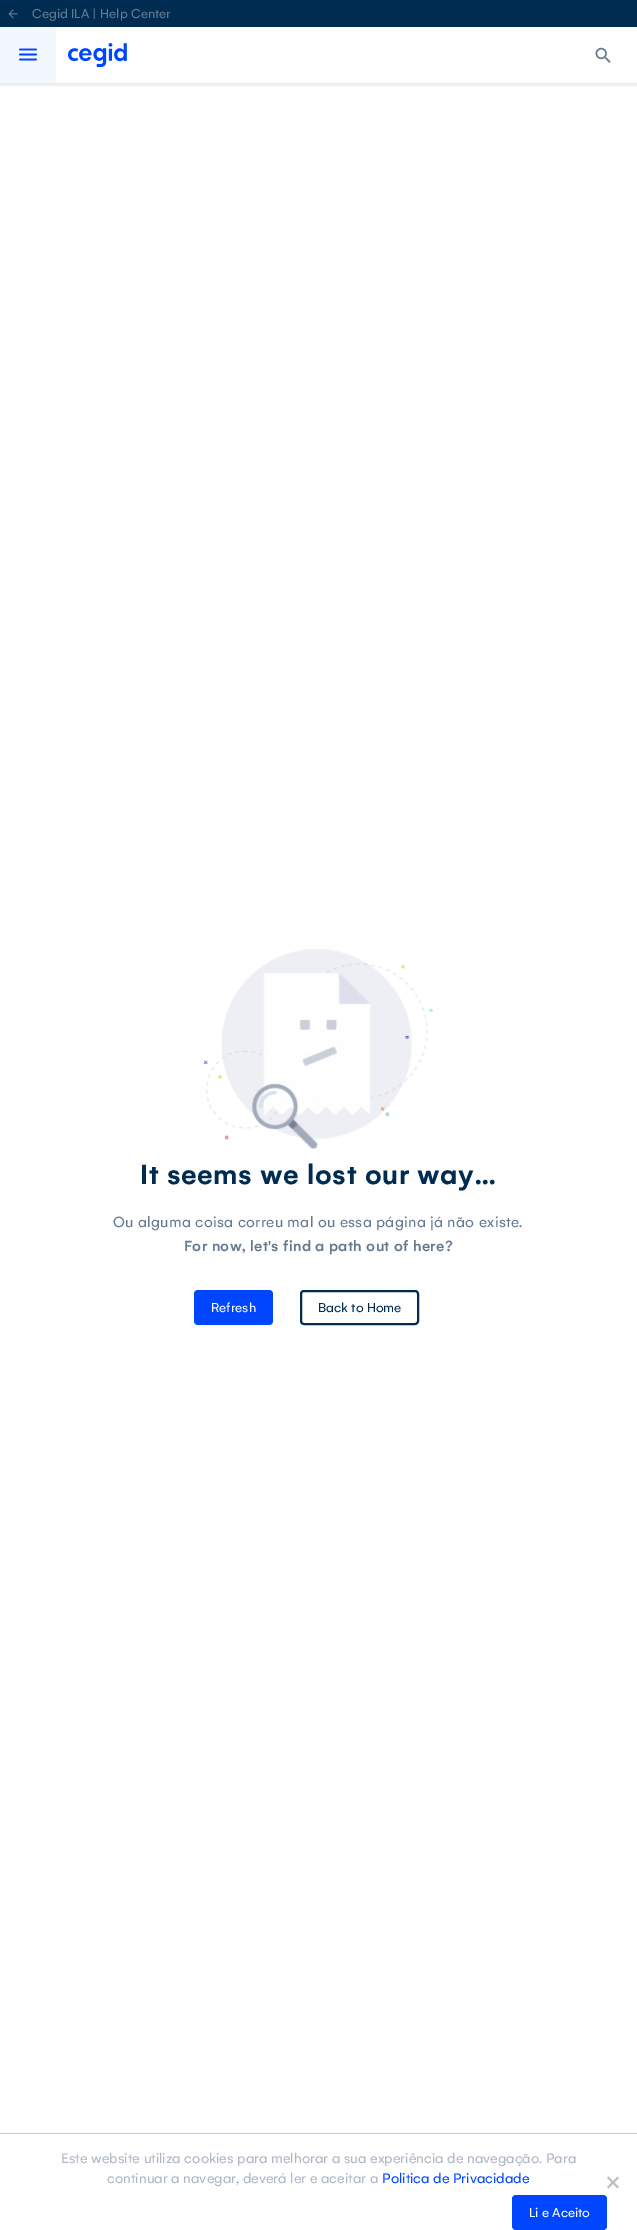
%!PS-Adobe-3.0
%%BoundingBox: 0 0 637 2230
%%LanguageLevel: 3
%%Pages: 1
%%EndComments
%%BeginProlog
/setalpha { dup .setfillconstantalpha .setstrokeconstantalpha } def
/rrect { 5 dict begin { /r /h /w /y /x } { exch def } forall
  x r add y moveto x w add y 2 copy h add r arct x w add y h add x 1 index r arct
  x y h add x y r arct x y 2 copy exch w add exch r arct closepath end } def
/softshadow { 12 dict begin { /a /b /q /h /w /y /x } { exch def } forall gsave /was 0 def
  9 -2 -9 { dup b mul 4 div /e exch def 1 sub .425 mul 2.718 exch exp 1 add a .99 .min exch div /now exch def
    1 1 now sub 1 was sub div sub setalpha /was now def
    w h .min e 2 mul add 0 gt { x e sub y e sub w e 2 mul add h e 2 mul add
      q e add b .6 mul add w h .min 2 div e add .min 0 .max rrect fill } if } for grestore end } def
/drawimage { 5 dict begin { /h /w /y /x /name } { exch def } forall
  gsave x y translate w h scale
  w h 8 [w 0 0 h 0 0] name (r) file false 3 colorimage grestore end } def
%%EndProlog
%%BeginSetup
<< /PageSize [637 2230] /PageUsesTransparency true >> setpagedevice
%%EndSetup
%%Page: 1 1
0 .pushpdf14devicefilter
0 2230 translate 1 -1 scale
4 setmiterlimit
0.996 setgray
0 0 637 2230 rectfill
0 0.173 0.322 setrgbcolor
0 0 637 27 rectfill
(images/1.raw) 8 9 10 10 drawimage
gsave
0 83 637 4 rectclip
0 setgray
0 29 637 56 0 2 0.1 softshadow
grestore
0.953 0.969 0.996 setrgbcolor
0 27 56 56 rectfill
(images/2.raw) 19 48 18 13 drawimage
(images/3.raw) 68 43 59 24 drawimage
(images/4.raw) 595 47 16 16 drawimage
(images/5.raw) 204 949 229 200 drawimage
0 0.275 0.996 setrgbcolor
194 1290 79 35 4 rrect fill
0 0.173 0.322 setrgbcolor
2 setlinewidth
301 1291 117 33 3 rrect stroke
0.796 setgray
0 2133 637 1 rectfill
0.749 setgray
newpath 617.5 2176.5 moveto 619 2178 lineto 608.5 2188.5 lineto 607 2187 lineto closepath fill
newpath 607 2178 moveto 608.5 2176.5 lineto 619 2187 lineto 617.5 2188.5 lineto closepath fill
0 0.275 0.996 setrgbcolor
512 2195 95 35 4 rrect fill
/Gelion-Regular [14 0 0 -14 0 0] selectfont
0.396 0.475 0.561 setrgbcolor
32 18 moveto (Cegid ILA | Help Center) show
/Gelion-SemiBold [30 0 0 -30 0 0] selectfont
0 0.173 0.322 setrgbcolor
140 1184 moveto 0.6 0 (It seems we lost our way...) ashow
/Gelion-Regular [16 0 0 -16 0 0] selectfont
0.396 0.475 0.561 setrgbcolor
113 1227 moveto 0.32 0 (Ou alguma coisa correu mal ou essa página já não existe.) ashow
/Gelion-Medium [16 0 0 -16 0 0] selectfont
184 1251 moveto 0.32 0 (For now, let's find a path out of here?) ashow
/Gelion-Regular [14 0 0 -14 0 0] selectfont
0.996 setgray
211 1312 moveto (Refresh) show
0 0.173 0.322 setrgbcolor
318 1312 moveto (Back to Home) show
/Gelion-Regular [15 0 0 -15 0 0] selectfont
0.678 0.718 0.773 setrgbcolor
61 2163 moveto (Este website utiliza cookies para melhorar a sua experiência de navegação. Para) show
107 2183 moveto (continuar a navegar, deverá ler e aceitar a) show
0 0.275 0.996 setrgbcolor
382 2183 moveto (Politica de Privacidade) show
/Gelion-Regular [14 0 0 -14 0 0] selectfont
0.996 setgray
529 2217 moveto (Li e Aceito) show
.poppdf14devicefilter showpage
%%EOF
